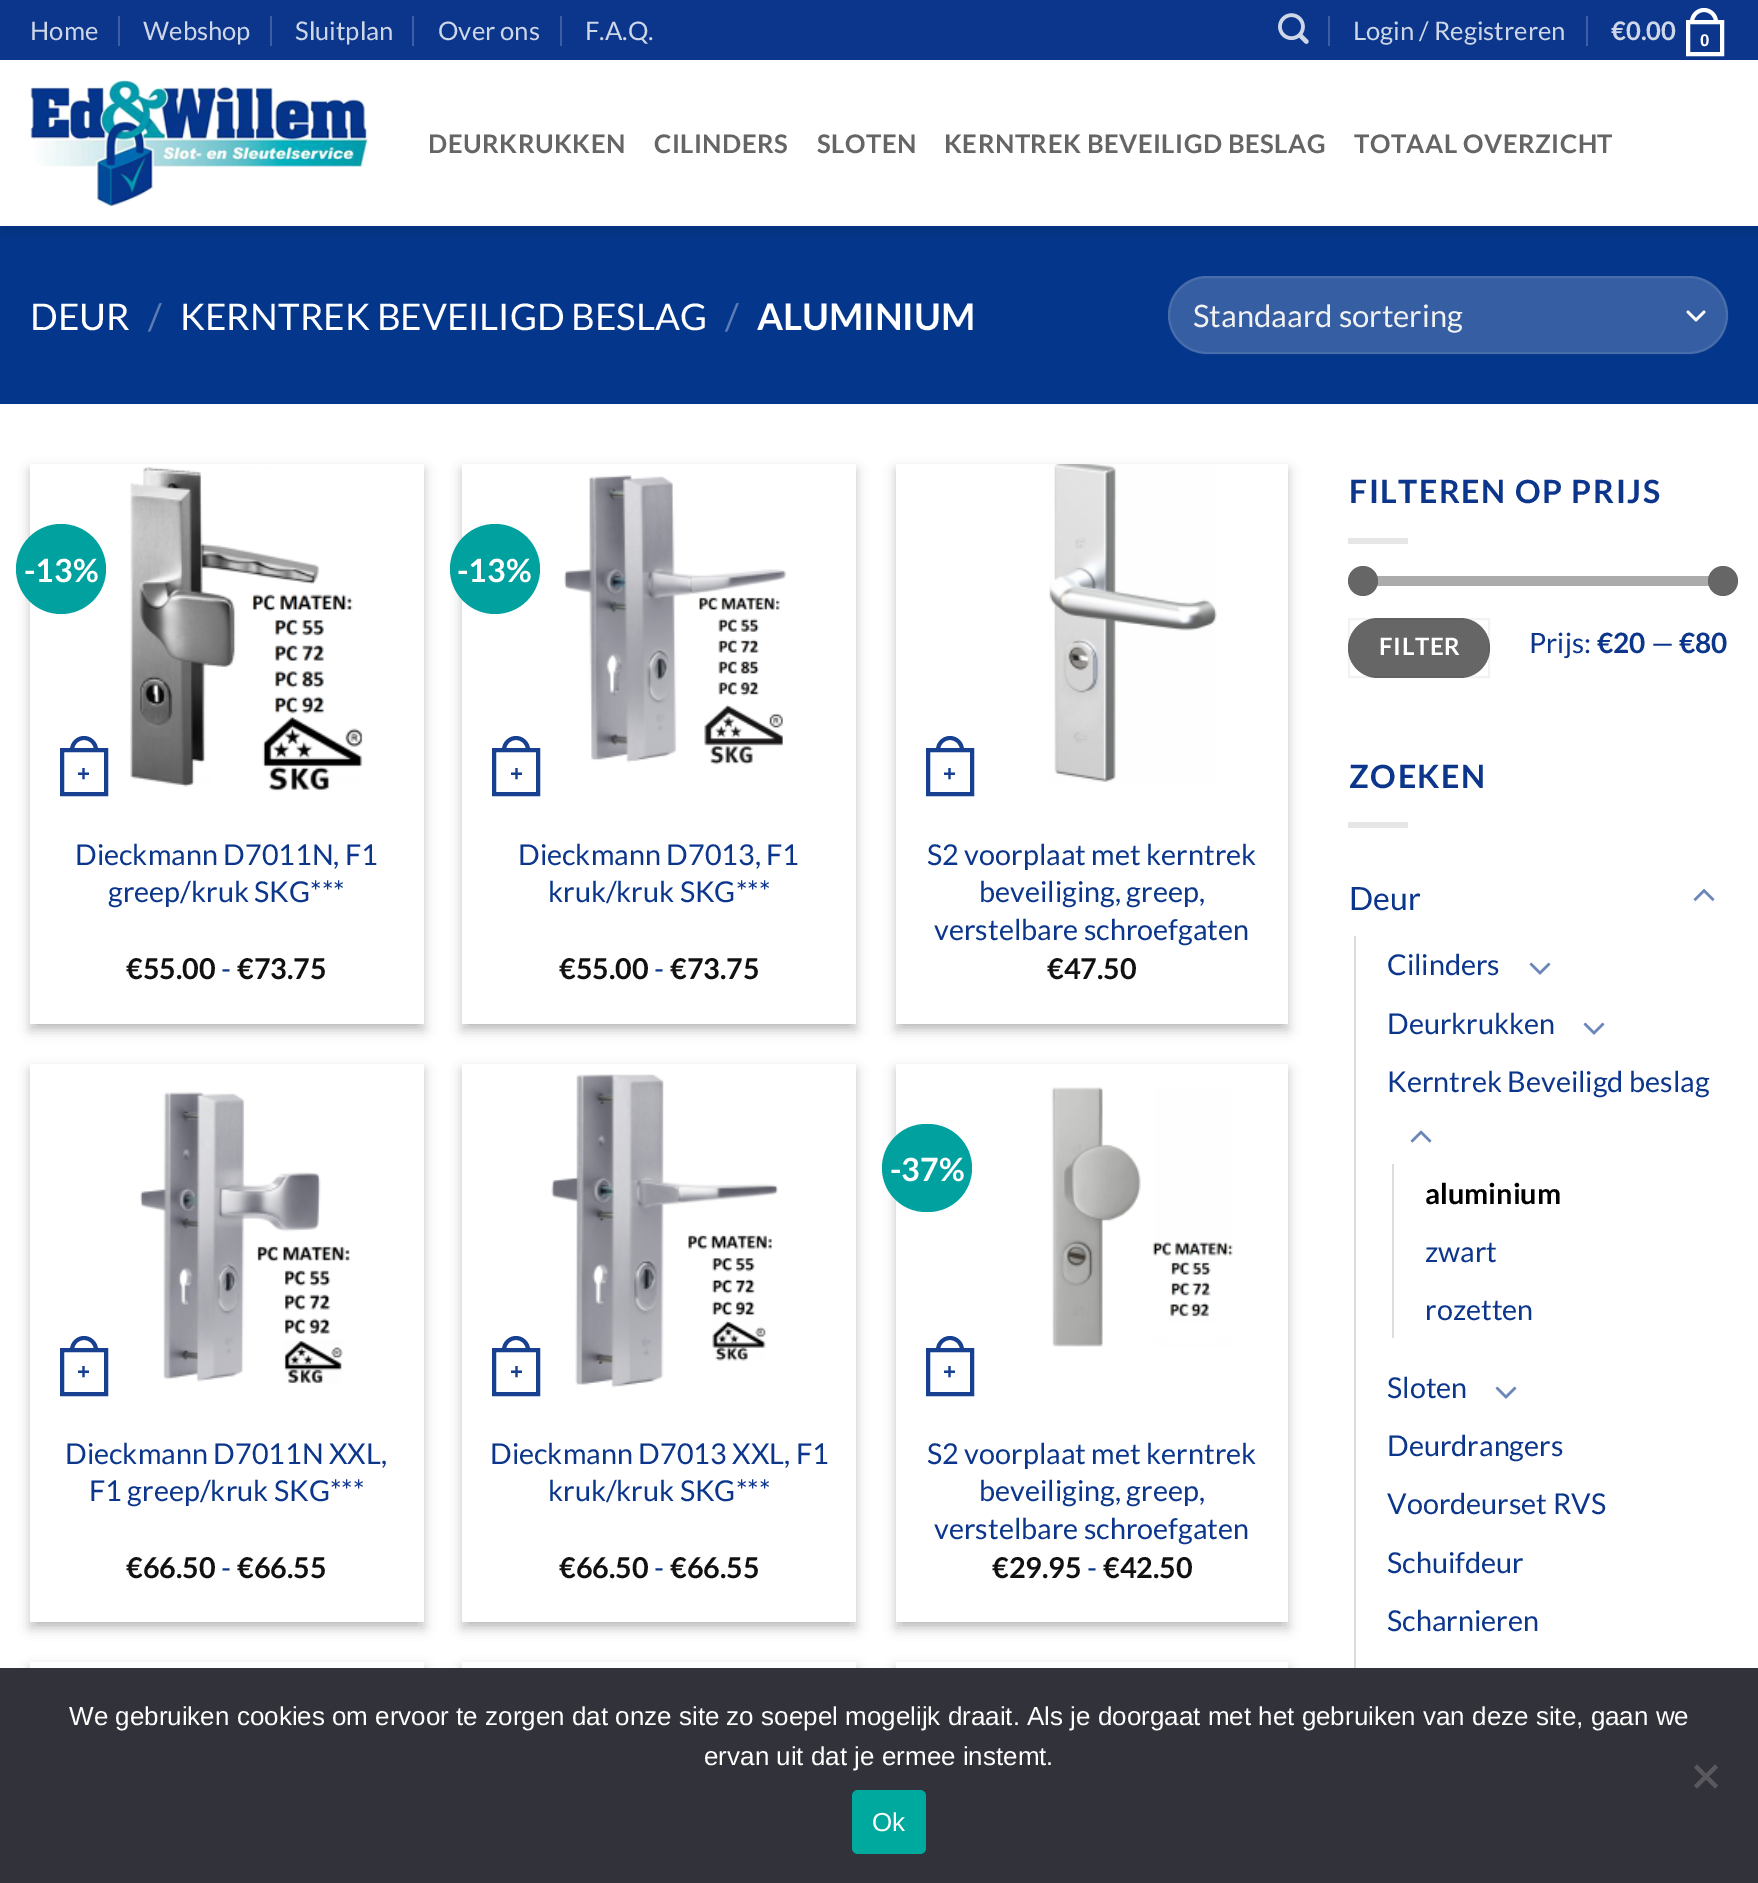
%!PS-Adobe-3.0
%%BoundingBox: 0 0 1758 1883
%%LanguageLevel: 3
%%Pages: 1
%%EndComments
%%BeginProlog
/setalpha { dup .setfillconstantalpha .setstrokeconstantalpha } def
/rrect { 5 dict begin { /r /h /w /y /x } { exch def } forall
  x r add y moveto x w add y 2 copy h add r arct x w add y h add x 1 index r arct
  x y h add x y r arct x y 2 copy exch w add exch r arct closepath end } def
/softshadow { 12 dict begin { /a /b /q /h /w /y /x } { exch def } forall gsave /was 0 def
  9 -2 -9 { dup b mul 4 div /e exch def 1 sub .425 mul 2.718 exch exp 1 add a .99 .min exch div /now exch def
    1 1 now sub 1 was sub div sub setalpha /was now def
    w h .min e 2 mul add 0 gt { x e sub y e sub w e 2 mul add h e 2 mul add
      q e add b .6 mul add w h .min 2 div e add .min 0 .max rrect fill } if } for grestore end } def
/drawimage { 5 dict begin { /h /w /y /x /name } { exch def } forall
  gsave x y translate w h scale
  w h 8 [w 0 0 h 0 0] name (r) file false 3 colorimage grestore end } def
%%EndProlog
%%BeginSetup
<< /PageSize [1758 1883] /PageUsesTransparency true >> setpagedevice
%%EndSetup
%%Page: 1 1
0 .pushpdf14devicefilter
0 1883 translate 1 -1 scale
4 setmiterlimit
1 setgray
0 0 1758 1883 rectfill
0.016 0.212 0.545 setrgbcolor
0 226 1758 178 rectfill
gsave
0 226 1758 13 rectclip
0 setgray
2 2 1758 226 0 10 0.15 softshadow
grestore
0.043 0.212 0.545 setrgbcolor
0 0 1758 60 rectfill
0.235 0.369 0.635 setrgbcolor
118 16 2 30 rectfill
270 16 2 30 rectfill
412 16 2 30 rectfill
560 16 2 30 rectfill
(images/1.raw) 1278 13 31 31 drawimage
1328 16 2 30 rectfill
1586 16 2 30 rectfill
1 setgray
4 setlinewidth
1688 22 34 32 rectstroke
newpath 1704 8 moveto 1711.5 8 1718 14.5 1718 22 curveto 1718 24 lineto 1690 24 lineto 1690 22 lineto 1690 14.5 1696.5 8 1704 8 curveto closepath 1704 12 moveto 1709.5 12 1714 16.5 1714 22 curveto 1714 24 lineto 1694 24 lineto 1694 22 lineto 1694 16.5 1698.5 12 1704 12 curveto closepath eofill
(images/2.raw) 30 80 338 127 drawimage
0.212 0.369 0.635 setrgbcolor
1168 276 560 78 39 rrect fill
1 setgray
2.7 setlinewidth
1 setlinecap
1 setlinejoin
newpath 1688 312 moveto 1696 320 lineto 1704 312 lineto stroke
0.09 setalpha
2 setlinewidth
0 setlinecap
0 setlinejoin
1169 277 558 76 38 rrect stroke
gsave
newpath 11 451 moveto 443 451 lineto 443 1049 lineto 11 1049 lineto closepath 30 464 moveto 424 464 lineto 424 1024 lineto 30 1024 lineto closepath eoclip newpath
1 setalpha
0 setgray
30 470 394 560 0 6 0.23 softshadow
grestore
gsave
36 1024 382 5 rectclip
1 setalpha
0 setgray
38 478 378 544 0 6 0.16 softshadow
grestore
1 setalpha
0.004 0.631 0.624 setrgbcolor
newpath 61 569 45 0 360 arc closepath fill
0.09 0.251 0.569 setrgbcolor
4 setlinewidth
62 750 44 44 rectstroke
newpath 84 736 moveto 91.5 736 98 742.5 98 750 curveto 98 752 lineto 70 752 lineto 70 750 lineto 70 742.5 76.5 736 84 736 curveto closepath 84 740 moveto 89.5 740 94 744.5 94 750 curveto 94 752 lineto 74 752 lineto 74 750 lineto 74 744.5 78.5 740 84 740 curveto closepath eofill
(images/3.raw) 130 467 233 325 drawimage
gsave
newpath 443 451 moveto 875 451 lineto 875 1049 lineto 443 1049 lineto closepath 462 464 moveto 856 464 lineto 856 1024 lineto 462 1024 lineto closepath eoclip newpath
0 setgray
462 470 394 560 0 6 0.23 softshadow
grestore
gsave
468 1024 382 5 rectclip
0 setgray
470 478 378 544 0 6 0.16 softshadow
grestore
0.004 0.631 0.624 setrgbcolor
newpath 495 569 45 0 360 arc closepath fill
(images/4.raw) 564 475 223 290 drawimage
0.09 0.251 0.569 setrgbcolor
494 750 44 44 rectstroke
newpath 516 736 moveto 523.5 736 530 742.5 530 750 curveto 530 752 lineto 502 752 lineto 502 750 lineto 502 742.5 508.5 736 516 736 curveto closepath 516 740 moveto 521.5 740 526 744.5 526 750 curveto 526 752 lineto 506 752 lineto 506 750 lineto 506 744.5 510.5 740 516 740 curveto closepath eofill
gsave
newpath 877 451 moveto 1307 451 lineto 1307 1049 lineto 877 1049 lineto closepath 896 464 moveto 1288 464 lineto 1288 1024 lineto 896 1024 lineto closepath eoclip newpath
0 setgray
896 470 392 560 0 6 0.23 softshadow
grestore
gsave
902 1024 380 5 rectclip
0 setgray
904 478 376 544 0 6 0.16 softshadow
grestore
928 750 44 44 rectstroke
newpath 950 736 moveto 957.5 736 964 742.5 964 750 curveto 964 752 lineto 936 752 lineto 936 750 lineto 936 742.5 942.5 736 950 736 curveto closepath 950 740 moveto 955.5 740 960 744.5 960 750 curveto 960 752 lineto 940 752 lineto 940 750 lineto 940 744.5 944.5 740 950 740 curveto closepath eofill
(images/5.raw) 1049 464 168 318 drawimage
gsave
newpath 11 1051 moveto 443 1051 lineto 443 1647 lineto 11 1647 lineto closepath 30 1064 moveto 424 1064 lineto 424 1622 lineto 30 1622 lineto closepath eoclip newpath
0 setgray
30 1070 394 558 0 6 0.23 softshadow
grestore
gsave
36 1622 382 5 rectclip
0 setgray
38 1078 378 542 0 6 0.16 softshadow
grestore
62 1350 44 44 rectstroke
newpath 84 1336 moveto 91.5 1336 98 1342.5 98 1350 curveto 98 1352 lineto 70 1352 lineto 70 1350 lineto 70 1342.5 76.5 1336 84 1336 curveto closepath 84 1340 moveto 89.5 1340 94 1344.5 94 1350 curveto 94 1352 lineto 74 1352 lineto 74 1350 lineto 74 1344.5 78.5 1340 84 1340 curveto closepath eofill
(images/6.raw) 140 1092 210 291 drawimage
gsave
newpath 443 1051 moveto 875 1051 lineto 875 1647 lineto 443 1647 lineto closepath 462 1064 moveto 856 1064 lineto 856 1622 lineto 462 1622 lineto closepath eoclip newpath
0 setgray
462 1070 394 558 0 6 0.23 softshadow
grestore
gsave
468 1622 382 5 rectclip
0 setgray
470 1078 378 542 0 6 0.16 softshadow
grestore
494 1350 44 44 rectstroke
newpath 516 1336 moveto 523.5 1336 530 1342.5 530 1350 curveto 530 1352 lineto 502 1352 lineto 502 1350 lineto 502 1342.5 508.5 1336 516 1336 curveto closepath 516 1340 moveto 521.5 1340 526 1344.5 526 1350 curveto 526 1352 lineto 506 1352 lineto 506 1350 lineto 506 1344.5 510.5 1340 516 1340 curveto closepath eofill
(images/7.raw) 551 1074 228 314 drawimage
gsave
newpath 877 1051 moveto 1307 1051 lineto 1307 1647 lineto 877 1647 lineto closepath 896 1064 moveto 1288 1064 lineto 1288 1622 lineto 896 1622 lineto closepath eoclip newpath
0 setgray
896 1070 392 558 0 6 0.23 softshadow
grestore
gsave
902 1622 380 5 rectclip
0 setgray
904 1078 376 542 0 6 0.16 softshadow
grestore
0.004 0.631 0.624 setrgbcolor
882 1124 90 88 44 rrect fill
(images/8.raw) 1051 1087 182 260 drawimage
0.09 0.251 0.569 setrgbcolor
928 1350 44 44 rectstroke
newpath 950 1336 moveto 957.5 1336 964 1342.5 964 1350 curveto 964 1352 lineto 936 1352 lineto 936 1350 lineto 936 1342.5 942.5 1336 950 1336 curveto closepath 950 1340 moveto 955.5 1340 960 1344.5 960 1350 curveto 960 1352 lineto 940 1352 lineto 940 1350 lineto 940 1344.5 944.5 1340 950 1340 curveto closepath eofill
gsave
newpath 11 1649 moveto 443 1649 lineto 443 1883 lineto 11 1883 lineto closepath 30 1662 moveto 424 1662 lineto 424 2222 lineto 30 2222 lineto closepath eoclip newpath
0 setgray
30 1668 394 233 0 6 0.23 softshadow
grestore
gsave
newpath 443 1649 moveto 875 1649 lineto 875 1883 lineto 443 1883 lineto closepath 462 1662 moveto 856 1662 lineto 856 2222 lineto 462 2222 lineto closepath eoclip newpath
0 setgray
462 1668 394 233 0 6 0.23 softshadow
grestore
gsave
newpath 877 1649 moveto 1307 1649 lineto 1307 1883 lineto 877 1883 lineto closepath 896 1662 moveto 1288 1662 lineto 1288 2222 lineto 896 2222 lineto closepath eoclip newpath
0 setgray
896 1668 392 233 0 6 0.23 softshadow
grestore
0.902 setgray
1348 538 60 6 rectfill
0.945 setgray
1348 576 380 10 5 rrect fill
0.5 setalpha
0.4 setgray
1348 576 380 10 5 rrect fill
1 setalpha
newpath 1363 581 15 0 360 arc closepath fill
newpath 1723 581 15 0 360 arc closepath fill
1348 618 142 60 30 rrect fill
0.05 setalpha
0 setgray
2 setlinewidth
1349 619 140 58 rectstroke
1 setalpha
0.902 setgray
1348 822 60 6 rectfill
(images/9.raw) 1693 889 22 12 drawimage
0.867 setgray
1354 936 2 732 rectfill
(images/10.raw) 1529 962 22 13 drawimage
(images/10.raw) 1583 1022 22 13 drawimage
(images/11.raw) 1410 1130 22 13 drawimage
1392 1164 2 174 rectfill
(images/10.raw) 1495 1386 22 13 drawimage
0.196 0.196 0.227 setrgbcolor
0 1668 1758 215 rectfill
0.349 0.349 0.365 setrgbcolor
newpath 1715 1764.5 moveto 1718 1767.5 lineto 1697 1788.5 lineto 1694 1785.5 lineto closepath fill
newpath 1694 1767.5 moveto 1697 1764.5 lineto 1718 1785.5 lineto 1715 1788.5 lineto closepath fill
0 0.663 0.616 setrgbcolor
852 1790 74 64 6 rrect fill
/Lato-Regular [25.6 0 0 -25.6 0 0] selectfont
0.808 0.843 0.91 setrgbcolor
30 40 moveto (Home) show
143 40 moveto (Webshop) show
295 40 moveto (Sluitplan) show
438 40 moveto (Over ons) show
585 40 moveto (F.A.Q.) show
1353 40 moveto (Login / Registreren) show
/Lato-Bold [25.6 0 0 -25.6 0 0] selectfont
1611 40 moveto (€0.00) show
/LiberationSans-Bold [17 0 0 -17 0 0] selectfont
1 setgray
1700 46 moveto (0) show
/Lato-Bold [25.6 0 0 -25.6 0 0] selectfont
0.396 setgray
428 153 moveto 0.5 0 (DEURKRUKKEN) ashow
654 153 moveto 0.5 0 (CILINDERS) ashow
817 153 moveto 0.5 0 (SLOTEN) ashow
944 153 moveto 0.5 0 (KERNTREK BEVEILIGD BESLAG) ashow
1354 153 moveto 0.5 0 (TOTAAL OVERZICHT) ashow
/Lato-Regular [36.75 0 0 -36.75 0 0] selectfont
1 setgray
30 330 moveto (DEUR) show
0.361 0.486 0.706 setrgbcolor
148 330 moveto (/) show
1 setgray
180 330 moveto (KERNTREK BEVEILIGD BESLAG) show
0.361 0.486 0.706 setrgbcolor
725 330 moveto (/) show
/Lato-Bold [36.75 0 0 -36.75 0 0] selectfont
1 setgray
757 330 moveto (ALUMINIUM) show
/Lato-Regular [31 0 0 -31 0 0] selectfont
0.945 setgray
1193 327 moveto (Standaard sortering) show
/Lato-Bold [32 0 0 -32 0 0] selectfont
1 setgray
24 582 moveto (-13%) show
/LiberationSans-Bold [22 0 0 -22 0 0] selectfont
0.09 0.251 0.569 setrgbcolor
77 781 moveto (+) show
/Lato-Regular [28.75 0 0 -28.75 0 0] selectfont
0.043 0.212 0.545 setrgbcolor
75 865 moveto (Dieckmann D7011N, F1) show
108 902 moveto (greep/kruk SKG***) show
/Lato-Bold [28.75 0 0 -28.75 0 0] selectfont
0.067 setgray
126 979 moveto (€55.00) show
/Lato-Regular [28.75 0 0 -28.75 0 0] selectfont
0.043 0.212 0.545 setrgbcolor
221 979 moveto (-) show
/Lato-Bold [28.75 0 0 -28.75 0 0] selectfont
0.067 setgray
237 979 moveto (€73.75) show
/Lato-Bold [32 0 0 -32 0 0] selectfont
1 setgray
457 582 moveto (-13%) show
/LiberationSans-Bold [22 0 0 -22 0 0] selectfont
0.09 0.251 0.569 setrgbcolor
510 781 moveto (+) show
/Lato-Regular [28.75 0 0 -28.75 0 0] selectfont
0.043 0.212 0.545 setrgbcolor
518 865 moveto (Dieckmann D7013, F1) show
548 902 moveto (kruk/kruk SKG***) show
/Lato-Bold [28.75 0 0 -28.75 0 0] selectfont
0.067 setgray
559 979 moveto (€55.00) show
/Lato-Regular [28.75 0 0 -28.75 0 0] selectfont
0.043 0.212 0.545 setrgbcolor
654 979 moveto (-) show
/Lato-Bold [28.75 0 0 -28.75 0 0] selectfont
0.067 setgray
670 979 moveto (€73.75) show
/LiberationSans-Bold [22 0 0 -22 0 0] selectfont
0.09 0.251 0.569 setrgbcolor
943 781 moveto (+) show
/Lato-Regular [28.75 0 0 -28.75 0 0] selectfont
0.043 0.212 0.545 setrgbcolor
927 865 moveto (S2 voorplaat met kerntrek) show
979 902 moveto (beveiliging, greep,) show
934 940 moveto (verstelbare schroefgaten) show
/Lato-Bold [28.75 0 0 -28.75 0 0] selectfont
0.067 setgray
1047 979 moveto (€47.50) show
/LiberationSans-Bold [22 0 0 -22 0 0] selectfont
0.09 0.251 0.569 setrgbcolor
77 1379 moveto (+) show
/Lato-Regular [28.75 0 0 -28.75 0 0] selectfont
0.043 0.212 0.545 setrgbcolor
65 1464 moveto (Dieckmann D7011N XXL,) show
89 1501 moveto (F1 greep/kruk SKG***) show
/Lato-Bold [28.75 0 0 -28.75 0 0] selectfont
0.067 setgray
126 1578 moveto (€66.50) show
/Lato-Regular [28.75 0 0 -28.75 0 0] selectfont
0.043 0.212 0.545 setrgbcolor
221 1578 moveto (-) show
/Lato-Bold [28.75 0 0 -28.75 0 0] selectfont
0.067 setgray
237 1578 moveto (€66.55) show
/LiberationSans-Bold [22 0 0 -22 0 0] selectfont
0.09 0.251 0.569 setrgbcolor
510 1379 moveto (+) show
/Lato-Regular [28.75 0 0 -28.75 0 0] selectfont
0.043 0.212 0.545 setrgbcolor
490 1464 moveto (Dieckmann D7013 XXL, F1) show
548 1501 moveto (kruk/kruk SKG***) show
/Lato-Bold [28.75 0 0 -28.75 0 0] selectfont
0.067 setgray
559 1578 moveto (€66.50) show
/Lato-Regular [28.75 0 0 -28.75 0 0] selectfont
0.043 0.212 0.545 setrgbcolor
654 1578 moveto (-) show
/Lato-Bold [28.75 0 0 -28.75 0 0] selectfont
0.067 setgray
670 1578 moveto (€66.55) show
/Lato-Bold [32 0 0 -32 0 0] selectfont
1 setgray
890 1181 moveto (-37%) show
/LiberationSans-Bold [22 0 0 -22 0 0] selectfont
0.09 0.251 0.569 setrgbcolor
943 1379 moveto (+) show
/Lato-Regular [28.75 0 0 -28.75 0 0] selectfont
0.043 0.212 0.545 setrgbcolor
927 1464 moveto (S2 voorplaat met kerntrek) show
979 1501 moveto (beveiliging, greep,) show
934 1539 moveto (verstelbare schroefgaten) show
/Lato-Bold [28.75 0 0 -28.75 0 0] selectfont
0.067 setgray
992 1578 moveto (€29.95) show
/Lato-Regular [28.75 0 0 -28.75 0 0] selectfont
0.043 0.212 0.545 setrgbcolor
1087 1578 moveto (-) show
/Lato-Bold [28.75 0 0 -28.75 0 0] selectfont
0.067 setgray
1103 1578 moveto (€42.50) show
/Lato-Bold [32 0 0 -32 0 0] selectfont
0.043 0.212 0.545 setrgbcolor
1349 503 moveto 1.6 0 (FILTEREN OP PRIJS) ashow
/Lato-Bold [24 0 0 -24 0 0] selectfont
1 setgray
1379 655 moveto 0.75 0 (FILTER) ashow
/Lato-Regular [28 0 0 -28 0 0] selectfont
0.043 0.212 0.545 setrgbcolor
1529 653 moveto (Prijs:) show
/Lato-Bold [28 0 0 -28 0 0] selectfont
1597 653 moveto (€20) show
/Lato-Regular [28 0 0 -28 0 0] selectfont
1651 653 moveto (—) show
/Lato-Bold [28 0 0 -28 0 0] selectfont
1679 653 moveto (€80) show
/Lato-Bold [32 0 0 -32 0 0] selectfont
1349 788 moveto 1.6 0 (ZOEKEN) ashow
/Lato-Regular [32 0 0 -32 0 0] selectfont
1349 910 moveto (Deur) show
/Lato-Regular [28.75 0 0 -28.75 0 0] selectfont
1387 975 moveto (Cilinders) show
1387 1034 moveto (Deurkrukken) show
1387 1092 moveto (Kerntrek Beveiligd beslag) show
/Lato-Bold [28.75 0 0 -28.75 0 0] selectfont
0 setgray
1425 1204 moveto (aluminium) show
/Lato-Regular [28.75 0 0 -28.75 0 0] selectfont
0.043 0.212 0.545 setrgbcolor
1425 1262 moveto (zwart) show
1425 1320 moveto (rozetten) show
1387 1398 moveto (Sloten) show
1387 1456 moveto (Deurdrangers) show
1387 1514 moveto (Voordeurset RVS) show
1387 1573 moveto (Schuifdeur) show
1387 1631 moveto (Scharnieren) show
/LiberationSans-Regular [26 0 0 -26 0 0] selectfont
1 setgray
69 1725 moveto (We gebruiken cookies om ervoor te zorgen dat onze site zo soepel mogelijk draait. Als je doorgaat met het gebruiken van deze site, gaan we) show
704 1765 moveto (ervan uit dat je ermee instemt.) show
872 1831 moveto (Ok) show
.poppdf14devicefilter showpage
%%EOF
